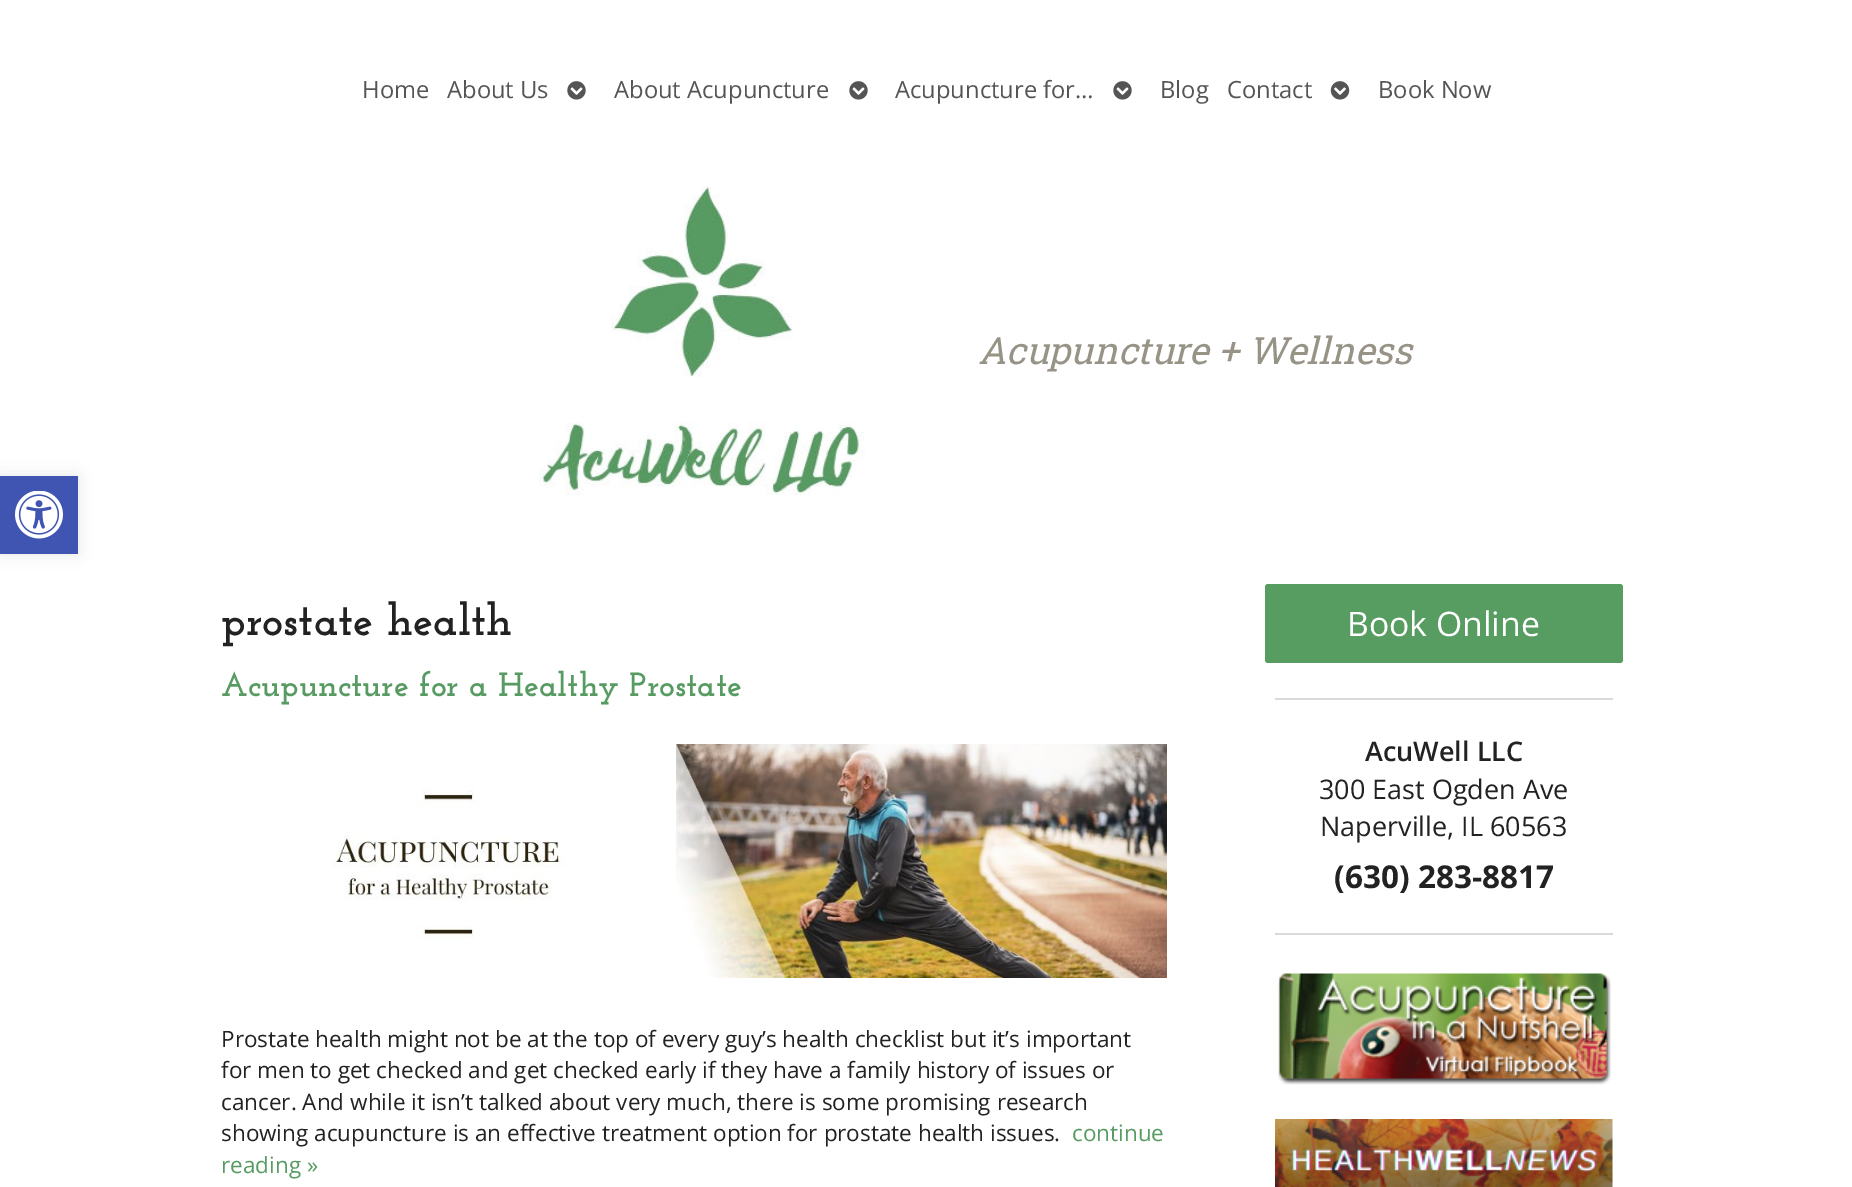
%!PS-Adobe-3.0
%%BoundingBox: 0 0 1852 1187
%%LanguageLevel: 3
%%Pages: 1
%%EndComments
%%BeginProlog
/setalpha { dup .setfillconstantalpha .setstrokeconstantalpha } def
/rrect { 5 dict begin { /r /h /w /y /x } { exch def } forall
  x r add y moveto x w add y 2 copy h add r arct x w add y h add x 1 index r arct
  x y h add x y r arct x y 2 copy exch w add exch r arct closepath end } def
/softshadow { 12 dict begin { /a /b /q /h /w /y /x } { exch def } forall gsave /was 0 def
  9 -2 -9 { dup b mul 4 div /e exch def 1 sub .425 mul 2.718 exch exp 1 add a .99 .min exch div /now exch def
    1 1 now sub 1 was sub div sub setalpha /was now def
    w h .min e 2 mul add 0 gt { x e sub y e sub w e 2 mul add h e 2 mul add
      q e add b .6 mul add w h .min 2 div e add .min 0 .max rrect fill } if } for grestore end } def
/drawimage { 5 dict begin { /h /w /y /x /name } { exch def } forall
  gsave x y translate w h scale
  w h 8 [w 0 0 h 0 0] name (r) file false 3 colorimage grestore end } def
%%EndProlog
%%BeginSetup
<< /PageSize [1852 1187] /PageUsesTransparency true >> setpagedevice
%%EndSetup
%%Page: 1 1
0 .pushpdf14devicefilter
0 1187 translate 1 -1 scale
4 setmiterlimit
1 setgray
0 0 1852 1187 rectfill
0 setgray
0 476 78 78 0 7.5 0.1 softshadow
0.251 0.329 0.698 setrgbcolor
0 476 78 78 rectfill
(images/1.raw) 15 491 48 48 drawimage
(images/2.raw) 567 81 19 19 drawimage
(images/2.raw) 849 81 19 19 drawimage
(images/2.raw) 1113 81 19 19 drawimage
(images/3.raw) 1330 81 20 19 drawimage
(images/4.raw) 539 186 326 310 drawimage
(images/5.raw) 331 744 836 234 drawimage
0.341 0.612 0.38 setrgbcolor
1265 584 358 79 3 rrect fill
0.851 setgray
1275 698 338 2 rectfill
1275 933 338 2 rectfill
(images/6.raw) 1278 973 333 112 drawimage
(images/7.raw) 1275 1119 338 68 drawimage
/OpenSans-Regular [23.75 0 0 -23.75 0 0] selectfont
0.333 setgray
362 98 moveto (Home) show
447 98 moveto (About Us) show
614 98 moveto (About Acupuncture) show
895 98 moveto (Acupuncture for…) show
1160 98 moveto (Blog) show
1227 98 moveto (Contact) show
1378 98 moveto (Book Now) show
/RobotoSlab-Italic [37.5 0 0 -37.5 0 0] selectfont
0.592 0.58 0.529 setrgbcolor
978 364 moveto (Acupuncture + Wellness) show
/JosefinSlab-Bold [45 0 0 -45 0 0] selectfont
0.133 setgray
221 635 moveto (prostate health) show
/JosefinSlab-Bold [33.75 0 0 -33.75 0 0] selectfont
0.341 0.608 0.384 setrgbcolor
221 696 moveto (Acupuncture for a Healthy Prostate) show
/OpenSans-Regular [22.5 0 0 -22.5 0 0] selectfont
0.133 setgray
221 1047 moveto (Prostate health might not be at the top of every guy’s health checklist but it’s important) show
221 1078 moveto (for men to get checked and get checked early if they have a family history of issues or) show
221 1110 moveto (cancer. And while it isn’t talked about very much, there is some promising research) show
221 1141 moveto (showing acupuncture is an effective treatment option for prostate health issues.) show
0.341 0.608 0.384 setrgbcolor
1072 1141 moveto (continue) show
221 1173 moveto (reading ») show
/OpenSans-Regular [33.75 0 0 -33.75 0 0] selectfont
1 setgray
1347 636 moveto (Book Online) show
/OpenSans-SemiBold [27 0 0 -27 0 0] selectfont
0.133 setgray
1365 761 moveto (AcuWell LLC) show
/OpenSans-Regular [27 0 0 -27 0 0] selectfont
1319 799 moveto (300 East Ogden Ave) show
1320 836 moveto (Naperville, IL 60563) show
/OpenSans-Bold [31.5 0 0 -31.5 0 0] selectfont
1334 888 moveto (\(630\) 283-8817) show
.poppdf14devicefilter showpage
%%EOF
